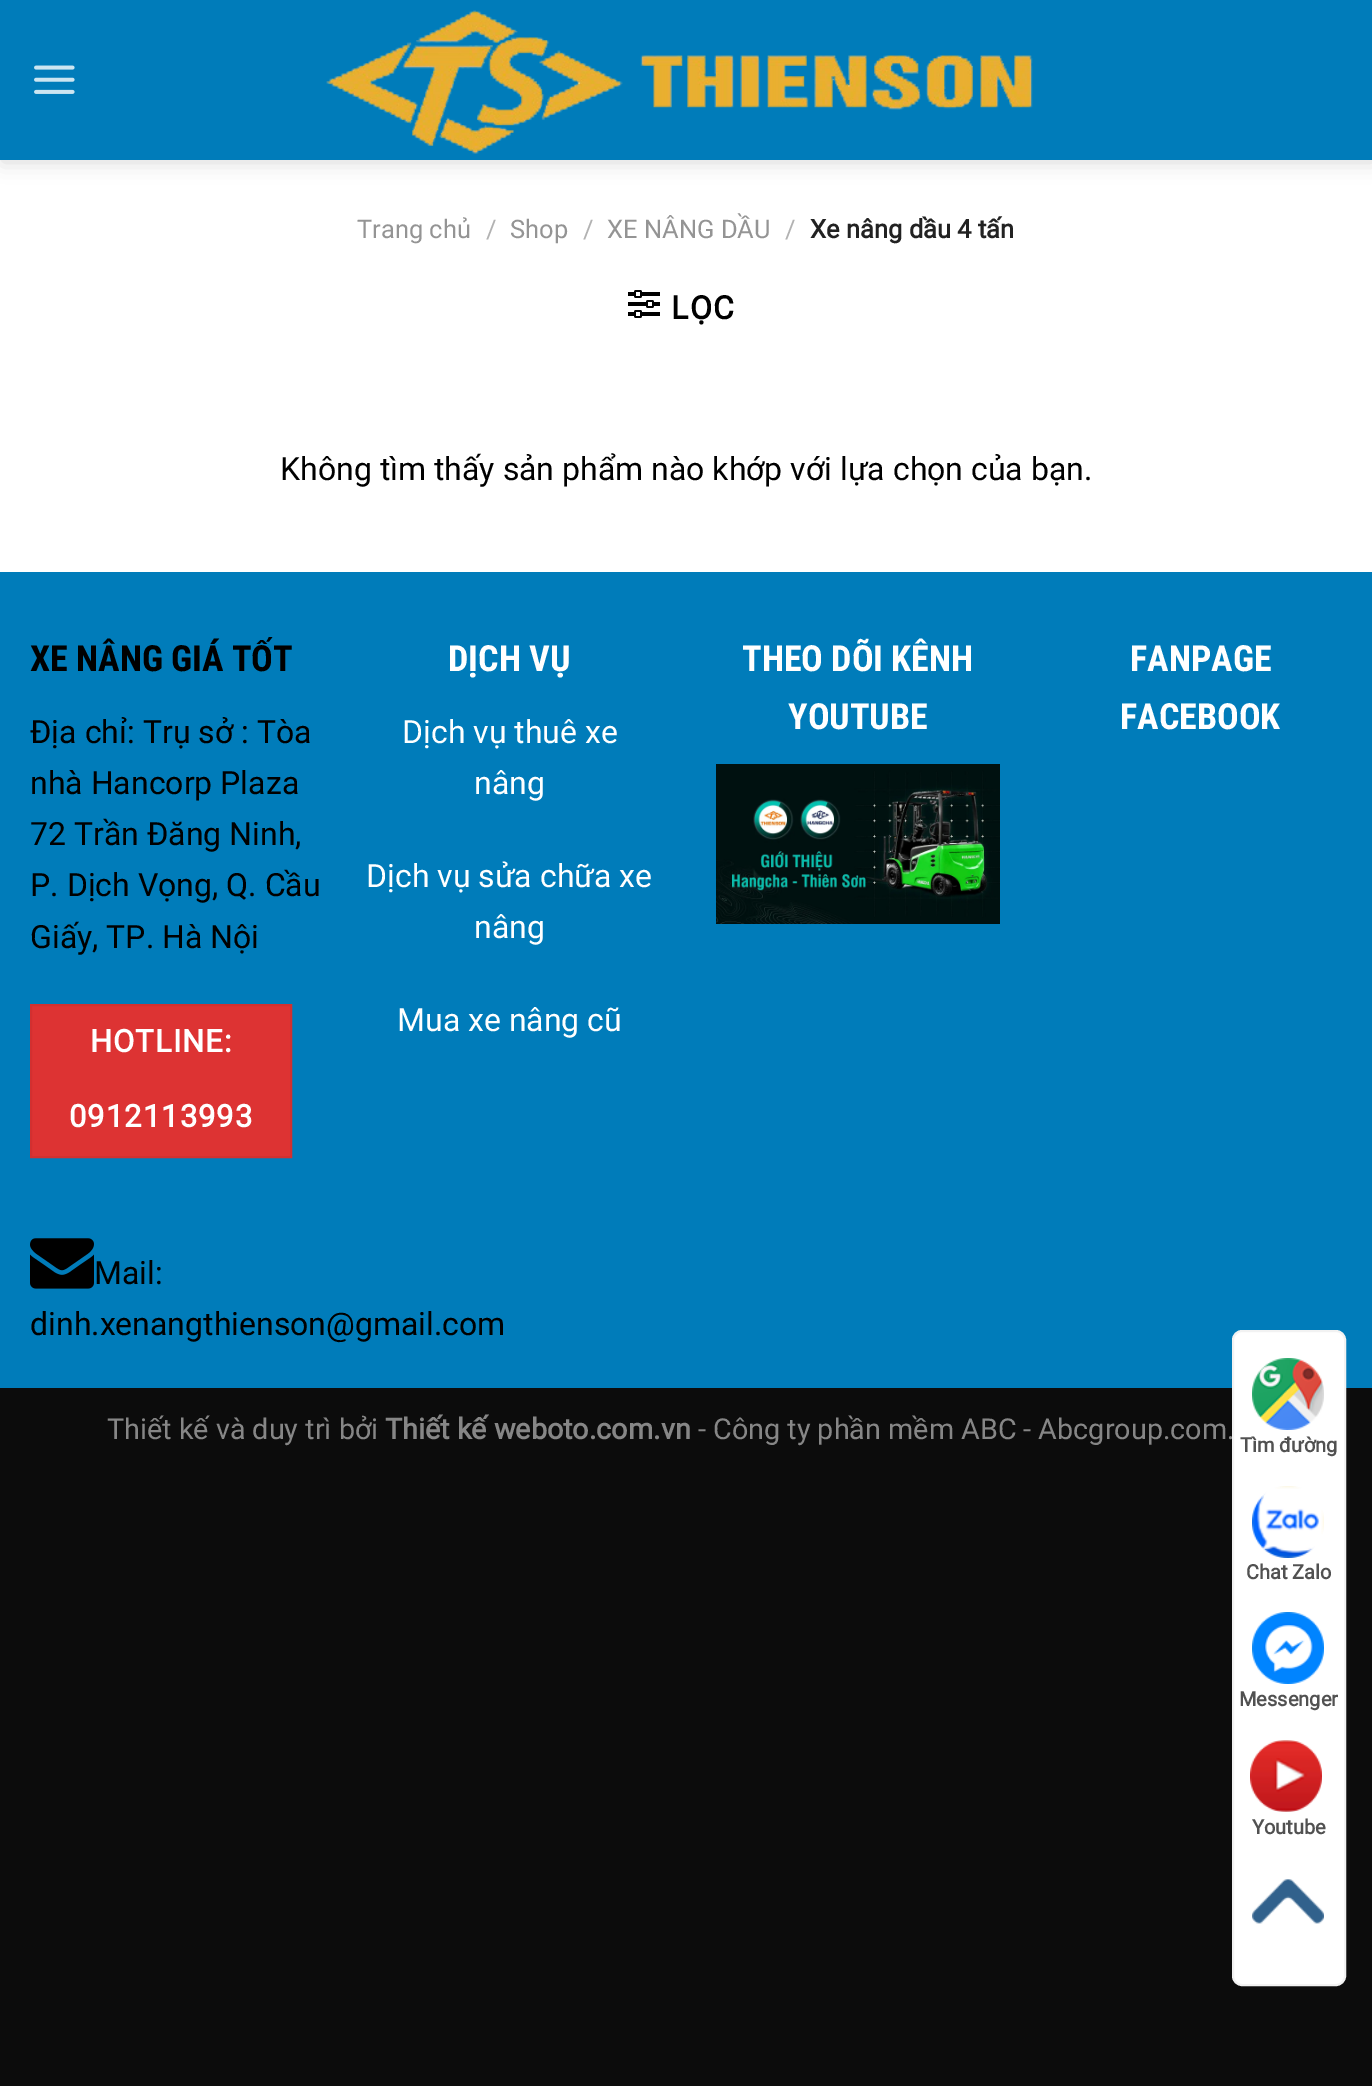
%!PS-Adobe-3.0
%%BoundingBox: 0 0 1372 2086
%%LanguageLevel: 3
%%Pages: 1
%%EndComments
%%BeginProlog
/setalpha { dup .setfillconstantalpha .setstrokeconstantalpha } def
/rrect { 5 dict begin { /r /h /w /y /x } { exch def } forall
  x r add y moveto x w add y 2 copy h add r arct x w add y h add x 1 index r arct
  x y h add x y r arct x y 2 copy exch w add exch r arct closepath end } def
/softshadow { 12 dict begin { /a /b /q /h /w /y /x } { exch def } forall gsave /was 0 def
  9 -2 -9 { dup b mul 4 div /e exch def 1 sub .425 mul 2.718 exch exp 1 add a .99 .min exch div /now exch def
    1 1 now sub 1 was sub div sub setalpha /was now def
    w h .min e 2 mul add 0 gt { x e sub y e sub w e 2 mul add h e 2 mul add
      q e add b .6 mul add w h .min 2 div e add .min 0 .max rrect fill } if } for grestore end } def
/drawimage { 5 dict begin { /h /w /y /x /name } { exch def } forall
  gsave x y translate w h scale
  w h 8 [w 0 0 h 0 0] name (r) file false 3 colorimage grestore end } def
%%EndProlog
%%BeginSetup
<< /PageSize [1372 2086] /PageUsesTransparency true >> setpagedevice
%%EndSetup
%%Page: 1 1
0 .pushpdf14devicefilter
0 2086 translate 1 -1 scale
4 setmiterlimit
0.047 setgray
0 0 1372 2086 rectfill
1 setgray
0 160 1372 412 rectfill
0 setgray
2 2 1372 160 0 10 0.15 softshadow
0 0.486 0.729 setrgbcolor
0 0 1372 160 rectfill
(images/1.raw) 34 65 41 29 drawimage
(images/2.raw) 326 10 707 144 drawimage
(images/3.raw) 628 290 32 28 drawimage
0 572 1372 816 rectfill
0.867 0.2 0.2 setrgbcolor
newpath 31 1005 moveto 291 1005 lineto 291 1157 lineto 31 1157 lineto closepath gsave fill grestore
0.824 0.188 0.188 setrgbcolor
2 setlinewidth
stroke
(images/4.raw) 30 1238 64 51 drawimage
(images/5.raw) 716 764 284 160 drawimage
/Roboto-Regular [25.5 0 0 -25.5 0 0] selectfont
0.58 setgray
357 238 moveto (Trang chủ) show
0.698 setgray
486 238 moveto (/) show
0.58 setgray
510 238 moveto (Shop) show
0.698 setgray
583 238 moveto (/) show
0.58 setgray
607 238 moveto (XE NÂNG DẦU) show
0.698 setgray
785 238 moveto (/) show
/Roboto-Bold [25.5 0 0 -25.5 0 0] selectfont
0.133 setgray
810 238 moveto (Xe nâng dầu 4 tấn) show
/Roboto-Bold [32 0 0 -32 0 0] selectfont
0 setgray
671 319 moveto 1.5 0 (LỌC) ashow
/Roboto-Regular [32 0 0 -32 0 0] selectfont
280 480 moveto (Không tìm thấy sản phẩm nào khớp với lựa chọn của bạn.) show
/RobotoCondensed-Bold [36 0 0 -36 0 0] selectfont
30 671 moveto (XE NÂNG GIÁ TỐT) show
/Roboto-Regular [32 0 0 -32 0 0] selectfont
30 743 moveto (Địa chỉ: Trụ sở : Tòa) show
30 794 moveto (nhà Hancorp Plaza) show
30 845 moveto (72 Trần Đăng Ninh,) show
30 896 moveto (P. Dịch Vọng, Q. Cầu) show
30 948 moveto (Giấy, TP. Hà Nội) show
/Roboto-Bold [31 0 0 -31 0 0] selectfont
1 setgray
90 1052 moveto 1 0 (HOTLINE:) ashow
69 1127 moveto 1 0 (0912113993) ashow
/Roboto-Regular [32 0 0 -32 0 0] selectfont
0 setgray
94 1284 moveto (Mail:) show
30 1335 moveto (dinh.xenangthienson@gmail.com) show
/RobotoCondensed-Bold [36 0 0 -36 0 0] selectfont
1 setgray
448 671 moveto (DỊCH VỤ) show
/Roboto-Regular [32 0 0 -32 0 0] selectfont
402 743 moveto (Dịch vụ thuê xe) show
474 794 moveto (nâng) show
366 887 moveto (Dịch vụ sửa chữa xe) show
474 938 moveto (nâng) show
397 1031 moveto (Mua xe nâng cũ) show
/RobotoCondensed-Bold [36 0 0 -36 0 0] selectfont
742 671 moveto (THEO DÕI KÊNH) show
788 729 moveto (YOUTUBE) show
1130 671 moveto (FANPAGE) show
1120 729 moveto (FACEBOOK) show
/Roboto-Regular [28.75 0 0 -28.75 0 0] selectfont
0.525 setgray
107 1439 moveto (Thiết kế và duy trì bởi) show
/Roboto-Bold [28.75 0 0 -28.75 0 0] selectfont
385 1439 moveto (Thiết kế weboto.com.vn) show
/Roboto-Regular [28.75 0 0 -28.75 0 0] selectfont
698 1439 moveto (- Công ty phần mềm ABC - Abcgroup.com.) show
1 setgray
1233 1331 112 654 9 rrect gsave fill grestore
0.949 setgray
stroke
(images/6.raw) 1252 1358 72 72 drawimage
/Roboto-Bold [20 0 0 -20 0 0] selectfont
0.318 setgray
1240 1452 moveto (Tìm đường) show
(images/7.raw) 1252 1486 72 72 drawimage
1246 1579 moveto (Chat Zalo) show
(images/8.raw) 1252 1612 72 72 drawimage
1239 1706 moveto (Messenger) show
(images/9.raw) 1250 1740 72 72 drawimage
1252 1834 moveto (Youtube) show
(images/10.raw) 1252 1879 72 45 drawimage
.poppdf14devicefilter showpage
%%EOF
